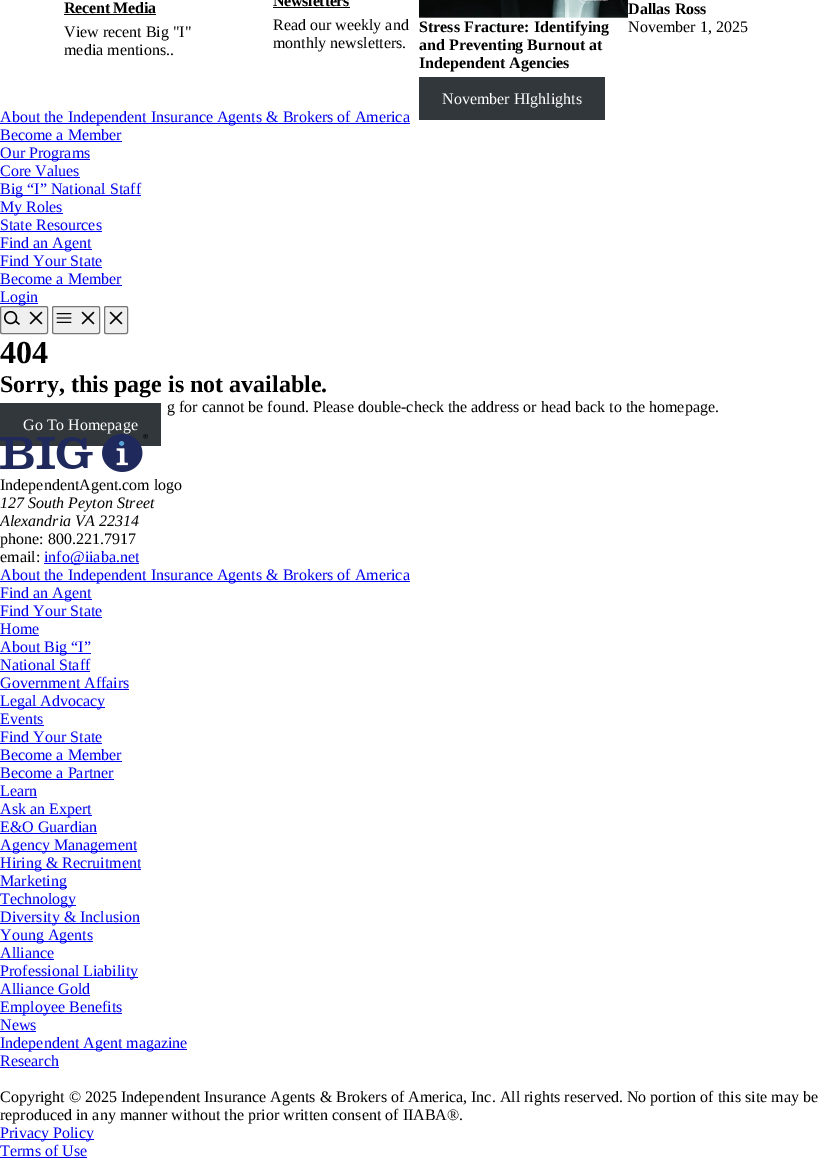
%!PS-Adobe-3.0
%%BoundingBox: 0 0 837 1166
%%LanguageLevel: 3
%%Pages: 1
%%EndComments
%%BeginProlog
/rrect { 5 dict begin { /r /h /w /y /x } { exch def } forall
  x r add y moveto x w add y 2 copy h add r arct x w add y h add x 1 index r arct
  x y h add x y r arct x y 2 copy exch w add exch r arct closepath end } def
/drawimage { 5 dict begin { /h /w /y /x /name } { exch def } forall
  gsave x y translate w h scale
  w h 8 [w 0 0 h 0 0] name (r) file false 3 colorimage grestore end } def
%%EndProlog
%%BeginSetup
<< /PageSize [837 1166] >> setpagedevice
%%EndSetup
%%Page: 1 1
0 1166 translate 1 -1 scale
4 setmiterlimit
1 setgray
0 0 837 1166 rectfill
0 setgray
64 14 92 1 rectfill
273 7 77 1 rectfill
(images/1.raw) 419 0 209 18 drawimage
0.196 0.216 0.235 setrgbcolor
419 77 186 43 rectfill
0 0 0.933 setrgbcolor
0 123 410 1 rectfill
0 141 122 1 rectfill
0 159 90 1 rectfill
0 177 80 1 rectfill
0 195 141 1 rectfill
0 213 63 1 rectfill
0 231 102 1 rectfill
0 249 92 1 rectfill
0 267 102 1 rectfill
0 285 122 1 rectfill
0 303 38 1 rectfill
0.937 setgray
0.5 306.5 47 27 1.5 rrect gsave fill grestore
0.463 setgray
stroke
(images/2.raw) 4 311 16 14 drawimage
(images/3.raw) 29 311 14 14 drawimage
0.937 setgray
52.5 306.5 47 27 1.5 rrect gsave fill grestore
0.463 setgray
stroke
(images/4.raw) 56 313 16 10 drawimage
(images/3.raw) 81 311 14 14 drawimage
0.937 setgray
104.5 306.5 23 27 1.5 rrect gsave fill grestore
0.463 setgray
stroke
(images/3.raw) 109 311 14 14 drawimage
0.196 0.216 0.235 setrgbcolor
0 403 161 43 rectfill
(images/5.raw) 0 434 148 38 drawimage
0 0 0.933 setrgbcolor
44 563 95 1 rectfill
0 581 410 1 rectfill
0 599 92 1 rectfill
0 617 102 1 rectfill
0 635 39 1 rectfill
0 653 91 1 rectfill
0 671 90 1 rectfill
0 689 129 1 rectfill
0 707 105 1 rectfill
0 725 44 1 rectfill
0 743 102 1 rectfill
0 761 122 1 rectfill
0 779 114 1 rectfill
0 797 37 1 rectfill
0 815 92 1 rectfill
0 833 97 1 rectfill
0 851 137 1 rectfill
0 869 141 1 rectfill
0 887 67 1 rectfill
0 905 76 1 rectfill
0 923 140 1 rectfill
0 941 93 1 rectfill
0 959 54 1 rectfill
0 977 138 1 rectfill
0 995 90 1 rectfill
0 1013 122 1 rectfill
0 1031 36 1 rectfill
0 1049 187 1 rectfill
0 1067 59 1 rectfill
0 1139 94 1 rectfill
0 1157 87 1 rectfill
/LiberationSerif-Bold [16 0 0 -16 0 0] selectfont
0 setgray
64 13 moveto -0.25 0 (Recent Media) ashow
/LiberationSerif-Regular [16 0 0 -16 0 0] selectfont
64 37 moveto (View recent Big "I") show
64 55 moveto (media mentions..) show
/LiberationSerif-Bold [16 0 0 -16 0 0] selectfont
273 6 moveto -0.25 0 (Newsletters) ashow
/LiberationSerif-Regular [16 0 0 -16 0 0] selectfont
273 30 moveto (Read our weekly and) show
273 48 moveto (monthly newsletters.) show
/LiberationSerif-Bold [16 0 0 -16 0 0] selectfont
419 32 moveto (Stress Fracture: Identifying) show
419 50 moveto (and Preventing Burnout at) show
419 68 moveto (Independent Agencies) show
/LiberationSerif-Regular [16 0 0 -16 0 0] selectfont
1 setgray
442 104 moveto (November HIghlights) show
/LiberationSerif-Bold [16 0 0 -16 0 0] selectfont
0 setgray
628 14 moveto (Dallas Ross) show
/LiberationSerif-Regular [16 0 0 -16 0 0] selectfont
628 32 moveto (November 1, 2025) show
0 0 0.933 setrgbcolor
0 122 moveto (About the Independent Insurance Agents & Brokers of America) show
0 140 moveto (Become a Member) show
0 158 moveto (Our Programs) show
0 176 moveto (Core Values) show
0 194 moveto (Big “I” National Staff) show
0 212 moveto (My Roles) show
0 230 moveto (State Resources) show
0 248 moveto (Find an Agent) show
0 266 moveto (Find Your State) show
0 284 moveto (Become a Member) show
0 302 moveto (Login) show
/LiberationSerif-Bold [32 0 0 -32 0 0] selectfont
0 setgray
0 363 moveto (404) show
/LiberationSerif-Bold [24 0 0 -24 0 0] selectfont
0 392 moveto (Sorry, this page is not available.) show
/LiberationSerif-Regular [16 0 0 -16 0 0] selectfont
167 412 moveto (g for cannot be found. Please double-check the address or head back to the homepage.) show
1 setgray
23 430 moveto (Go To Homepage) show
0 setgray
0 490 moveto (IndependentAgent.com logo) show
/LiberationSerif-Italic [16 0 0 -16 0 0] selectfont
0 508 moveto (127 South Peyton Street) show
0 526 moveto (Alexandria VA 22314) show
/LiberationSerif-Regular [16 0 0 -16 0 0] selectfont
0 544 moveto (phone: 800.221.7917) show
0 562 moveto (email:) show
0 0 0.933 setrgbcolor
44 562 moveto (info@iiaba.net) show
0 580 moveto (About the Independent Insurance Agents & Brokers of America) show
0 598 moveto (Find an Agent) show
0 616 moveto (Find Your State) show
0 634 moveto (Home) show
0 652 moveto (About Big “I”) show
0 670 moveto (National Staff) show
0 688 moveto (Government Affairs) show
0 706 moveto (Legal Advocacy) show
0 724 moveto (Events) show
0 742 moveto (Find Your State) show
0 760 moveto (Become a Member) show
0 778 moveto (Become a Partner) show
0 796 moveto (Learn) show
0 814 moveto (Ask an Expert) show
0 832 moveto (E&O Guardian) show
0 850 moveto (Agency Management) show
0 868 moveto (Hiring & Recruitment) show
0 886 moveto (Marketing) show
0 904 moveto (Technology) show
0 922 moveto (Diversity & Inclusion) show
0 940 moveto (Young Agents) show
0 958 moveto (Alliance) show
0 976 moveto (Professional Liability) show
0 994 moveto (Alliance Gold) show
0 1012 moveto (Employee Benefits) show
0 1030 moveto (News) show
0 1048 moveto (Independent Agent magazine) show
0 1066 moveto (Research) show
0 setgray
0 1102 moveto (Copyright © 2025 Independent Insurance Agents & Brokers of America, Inc. All rights reserved. No portion of this site may be) show
0 1120 moveto (reproduced in any manner without the prior written consent of IIABA®.) show
0 0 0.933 setrgbcolor
0 1138 moveto (Privacy Policy) show
0 1156 moveto (Terms of Use) show
showpage
%%EOF
